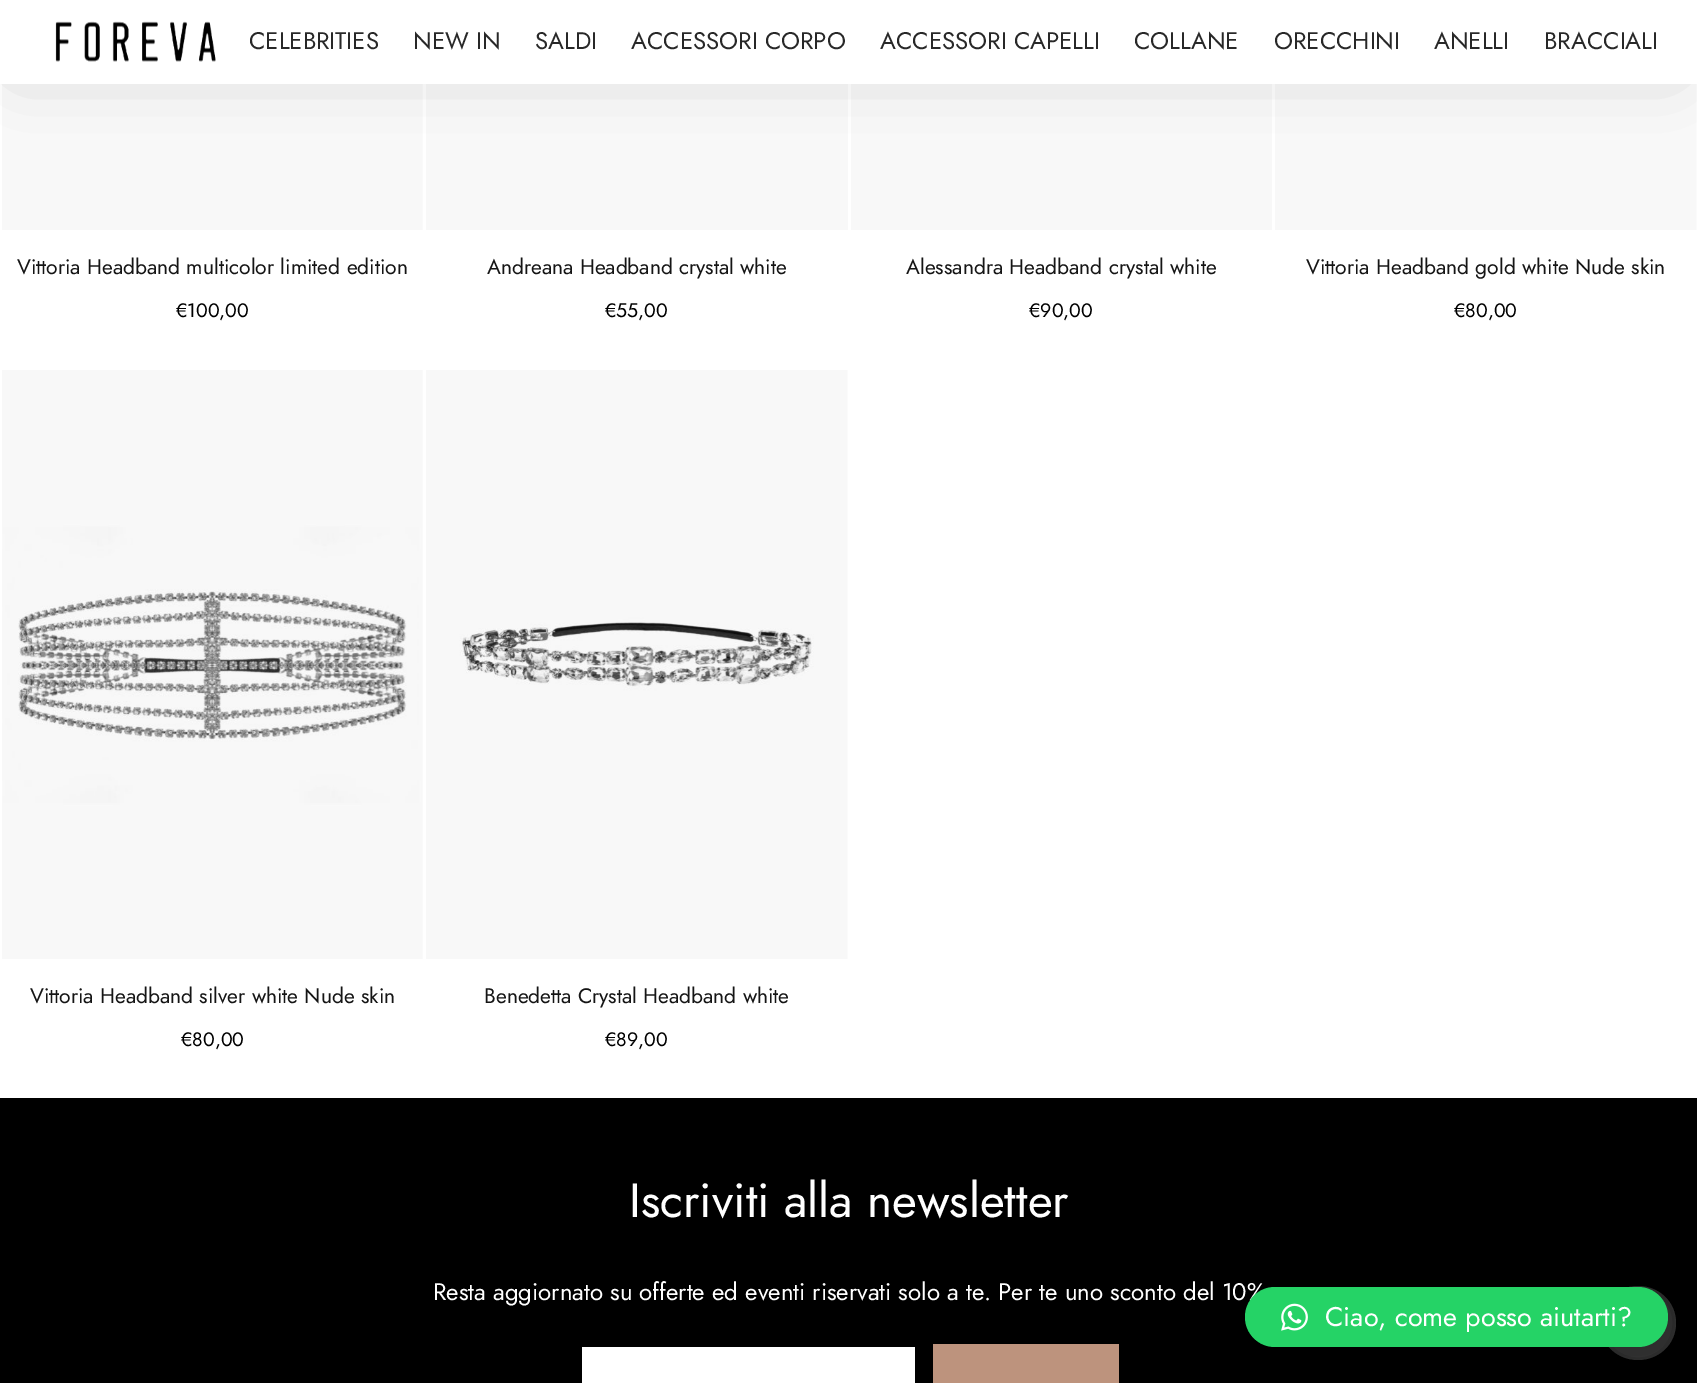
%!PS-Adobe-3.0
%%BoundingBox: 0 0 1697 1383
%%LanguageLevel: 3
%%Pages: 1
%%EndComments
%%BeginProlog
/setalpha { dup .setfillconstantalpha .setstrokeconstantalpha } def
/rrect { 5 dict begin { /r /h /w /y /x } { exch def } forall
  x r add y moveto x w add y 2 copy h add r arct x w add y h add x 1 index r arct
  x y h add x y r arct x y 2 copy exch w add exch r arct closepath end } def
/softshadow { 12 dict begin { /a /b /q /h /w /y /x } { exch def } forall gsave /was 0 def
  9 -2 -9 { dup b mul 4 div /e exch def 1 sub .425 mul 2.718 exch exp 1 add a .99 .min exch div /now exch def
    1 1 now sub 1 was sub div sub setalpha /was now def
    w h .min e 2 mul add 0 gt { x e sub y e sub w e 2 mul add h e 2 mul add
      q e add b .6 mul add w h .min 2 div e add .min 0 .max rrect fill } if } for grestore end } def
/drawimage { 5 dict begin { /h /w /y /x /name } { exch def } forall
  gsave x y translate w h scale
  w h 8 [w 0 0 h 0 0] name (r) file false 3 colorimage grestore end } def
%%EndProlog
%%BeginSetup
<< /PageSize [1697 1383] /PageUsesTransparency true >> setpagedevice
%%EndSetup
%%Page: 1 1
0 .pushpdf14devicefilter
0 1383 translate 1 -1 scale
4 setmiterlimit
1 setgray
0 0 1697 1383 rectfill
(images/2.raw) 2 84 421 146 drawimage
0.973 setgray
426 84 422 146 rectfill
851 84 421 146 rectfill
(images/3.raw) 1275 84 422 146 drawimage
0 setgray
27 33 1638 24 0 34 0.3 softshadow
1 setgray
0 0 1697 84 rectfill
(images/1.raw) 55 21 161 41 drawimage
(images/4.raw) 2 370 421 589 drawimage
(images/5.raw) 426 370 422 589 drawimage
0 setgray
0 1098 1697 285 rectfill
1 setgray
582 1347 333 36 rectfill
0.741 0.576 0.49 setrgbcolor
933 1344 186 39 rectfill
0.2 setgray
newpath 1600 1323 moveto 1600 1302 1617 1286 1638 1286 curveto 1659 1286 1676 1302 1676 1323 curveto 1676 1344 1659 1360 1638 1360 curveto 1617 1360 1600 1344 1600 1323 curveto closepath fill
0.1 setalpha
0 setgray
3 setlinewidth
newpath 1602 1323 moveto 1602 1303 1618 1287 1638 1287 curveto 1658 1287 1674 1303 1674 1323 curveto 1674 1343 1658 1359 1638 1359 curveto 1618 1359 1602 1343 1602 1323 curveto closepath stroke
1 setalpha
1245 1290 423 60 30 24 0.16 softshadow
1245 1289 423 60 30 4.5 0.06 softshadow
/Jost-Regular [24 0 0 -24 0 0] selectfont
0.157 setgray
249 49 moveto (CELEBRITIES) show
413 49 moveto (NEW IN) show
535 49 moveto (SALDI) show
631 49 moveto (ACCESSORI CORPO) show
880 49 moveto (ACCESSORI CAPELLI) show
1134 49 moveto (COLLANE) show
1274 49 moveto (ORECCHINI) show
1434 49 moveto (ANELLI) show
1544 49 moveto (BRACCIALI) show
/Jost-Regular [21 0 0 -21 0 0] selectfont
0.082 setgray
17 274 moveto (Vittoria Headband multicolor limited edition) show
/Jost-Regular [19.5 0 0 -19.5 0 0] selectfont
0 setgray
176 317 moveto (€100,00) show
/Jost-Regular [21 0 0 -21 0 0] selectfont
0.082 setgray
487 274 moveto (Andreana Headband crystal white) show
/Jost-Regular [19.5 0 0 -19.5 0 0] selectfont
0 setgray
605 317 moveto (€55,00) show
/Jost-Regular [21 0 0 -21 0 0] selectfont
0.082 setgray
906 274 moveto (Alessandra Headband crystal white) show
/Jost-Regular [19.5 0 0 -19.5 0 0] selectfont
0 setgray
1029 317 moveto (€90,00) show
/Jost-Regular [21 0 0 -21 0 0] selectfont
0.082 setgray
1306 274 moveto (Vittoria Headband gold white Nude skin) show
/Jost-Regular [19.5 0 0 -19.5 0 0] selectfont
0 setgray
1454 317 moveto (€80,00) show
/Jost-Regular [21 0 0 -21 0 0] selectfont
0.082 setgray
30 1003 moveto (Vittoria Headband silver white Nude skin) show
/Jost-Regular [19.5 0 0 -19.5 0 0] selectfont
0 setgray
181 1046 moveto (€80,00) show
/Jost-Regular [21 0 0 -21 0 0] selectfont
0.082 setgray
484 1003 moveto (Benedetta Crystal Headband white) show
/Jost-Regular [19.5 0 0 -19.5 0 0] selectfont
0 setgray
605 1046 moveto (€89,00) show
/Jost-Regular [48 0 0 -48 0 0] selectfont
1 setgray
629 1217 moveto (Iscriviti alla newsletter) show
/Jost-Regular [24 0 0 -24 0 0] selectfont
433 1300 moveto (Resta aggiornato su offerte ed eventi riservati solo a te. Per te uno sconto del 10%) show
0.145 0.827 0.4 setrgbcolor
1245 1287 423 60 30 rrect fill
(images/6.raw) 1281 1303 27 28 drawimage
/Jost-Regular [27 0 0 -27 0 0] selectfont
1 setgray
1325 1326 moveto (Ciao, come posso aiutarti?) show
.poppdf14devicefilter showpage
%%EOF
